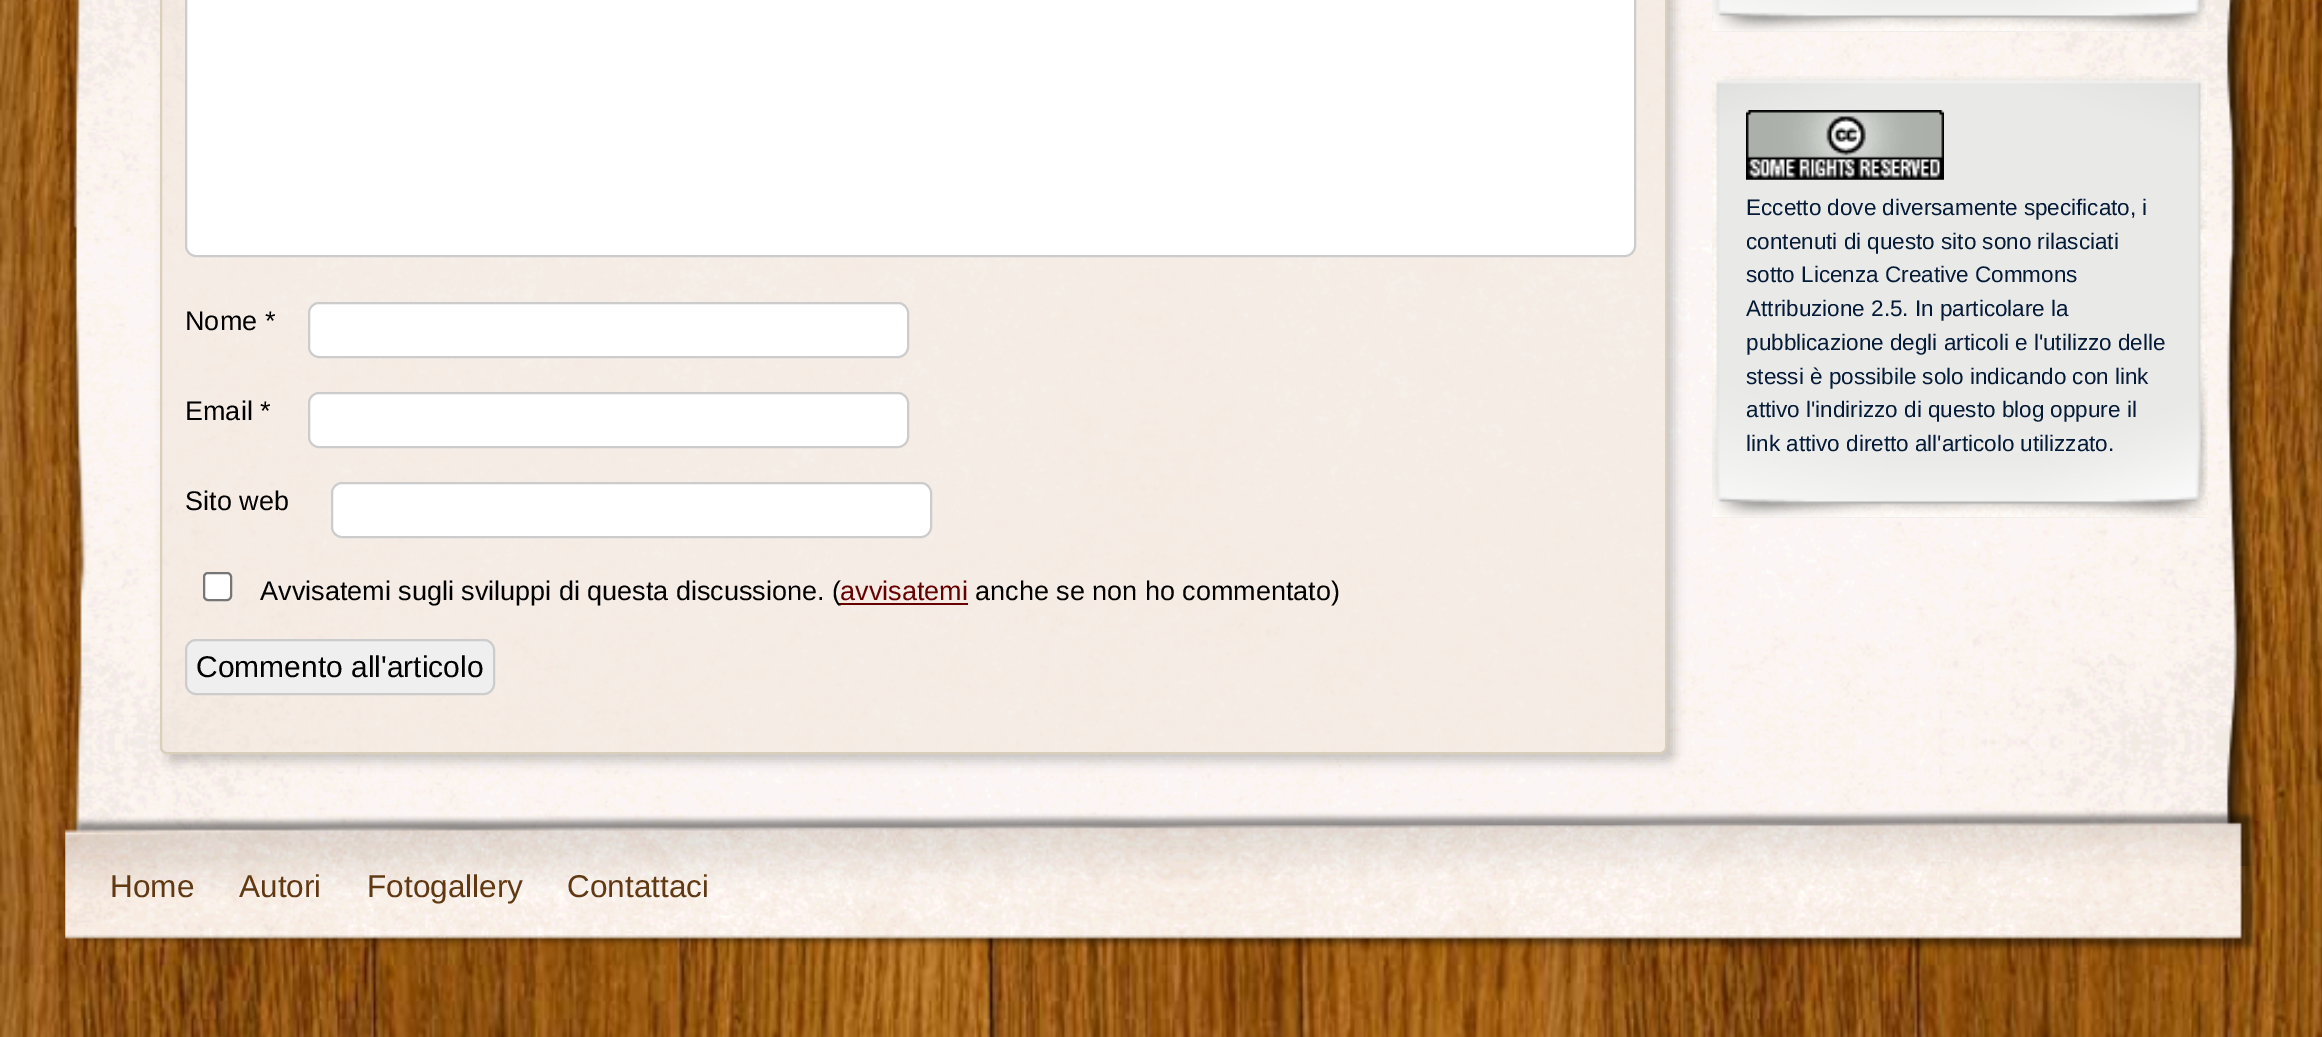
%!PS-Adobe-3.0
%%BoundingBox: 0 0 2322 1037
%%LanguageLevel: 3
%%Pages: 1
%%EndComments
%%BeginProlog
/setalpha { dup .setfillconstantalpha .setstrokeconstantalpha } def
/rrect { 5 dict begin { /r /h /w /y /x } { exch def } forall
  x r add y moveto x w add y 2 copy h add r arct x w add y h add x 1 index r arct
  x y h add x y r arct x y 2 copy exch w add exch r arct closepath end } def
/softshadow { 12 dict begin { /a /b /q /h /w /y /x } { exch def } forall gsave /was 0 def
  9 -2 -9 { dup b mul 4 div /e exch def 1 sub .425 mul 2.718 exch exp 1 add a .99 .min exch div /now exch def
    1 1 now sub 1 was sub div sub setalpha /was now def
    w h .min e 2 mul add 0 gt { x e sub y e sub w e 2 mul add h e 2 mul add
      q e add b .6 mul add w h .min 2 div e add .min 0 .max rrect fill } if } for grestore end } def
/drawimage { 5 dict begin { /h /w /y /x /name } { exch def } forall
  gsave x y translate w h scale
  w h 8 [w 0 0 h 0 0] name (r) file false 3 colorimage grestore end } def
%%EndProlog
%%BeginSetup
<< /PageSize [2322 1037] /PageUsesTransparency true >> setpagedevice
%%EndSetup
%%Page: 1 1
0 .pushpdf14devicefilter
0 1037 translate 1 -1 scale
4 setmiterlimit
1 setgray
0 0 2322 1037 rectfill
(images/1.raw) 0 0 2322 1037 drawimage
(images/2.raw) 0 0 2322 1015 drawimage
(images/3.raw) 70 0 2189 866 drawimage
gsave
newpath 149 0 moveto 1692 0 lineto 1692 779 lineto 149 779 lineto closepath 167 -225 moveto 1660 -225 lineto 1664 -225 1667 -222 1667 -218 curveto 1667 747 lineto 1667 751 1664 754 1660 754 curveto 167 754 lineto 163 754 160 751 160 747 curveto 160 -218 lineto 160 -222 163 -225 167 -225 curveto closepath eoclip newpath
0 setgray
167 -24 1507 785 7 5.5 0.2 softshadow
grestore
0.5 setalpha
0.937 0.89 0.847 setrgbcolor
161 -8 1505 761 6 rrect fill
1 setalpha
0.855 0.812 0.729 setrgbcolor
2 setlinewidth
161 -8 1505 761 6 rrect stroke
1 setgray
186 -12 1449 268 10 rrect gsave fill grestore
0.8 setgray
stroke
1 setgray
309 303 599 54 10 rrect gsave fill grestore
0.8 setgray
stroke
1 setgray
309 393 599 54 10 rrect gsave fill grestore
0.8 setgray
stroke
1 setgray
332 483 599 54 10 rrect gsave fill grestore
0.8 setgray
stroke
1 setgray
204 573 27 27 4 rrect gsave fill grestore
0.463 setgray
stroke
0.937 setgray
186 640 308 54 10 rrect gsave fill grestore
0.8 setgray
stroke
0.914 0.914 0.91 setrgbcolor
1712 0 495 32 rectfill
(images/4.raw) 1712 0 496 32 drawimage
1712 77 495 441 rectfill
(images/5.raw) 1712 76 496 442 drawimage
(images/6.raw) 1746 110 198 70 drawimage
(images/7.raw) 65 810 2192 141 drawimage
(images/8.raw) 0 1014 2322 23 drawimage
/LiberationSans-Regular [27 0 0 -27 0 0] selectfont
0 setgray
185 330 moveto (Nome *) show
185 420 moveto (Email *) show
185 510 moveto (Sito web) show
260 600 moveto (Avvisatemi sugli sviluppi di questa discussione. \() show
0.4 0 0 setrgbcolor
840 600 moveto (avvisatemi) show
839 603 129 2 rectfill
0 setgray
975 600 moveto (anche se non ho commentato\)) show
/LiberationSans-Regular [30 0 0 -30 0 0] selectfont
196 677 moveto (Commento all'articolo) show
/LiberationSans-Regular [22.5 0 0 -22.5 0 0] selectfont
0.016 0.102 0.212 setrgbcolor
1746 215 moveto (Eccetto dove diversamente specificato, i) show
1746 249 moveto (contenuti di questo sito sono rilasciati) show
1746 282 moveto (sotto Licenza Creative Commons) show
1746 316 moveto (Attribuzione 2.5. In particolare la) show
1746 350 moveto (pubblicazione degli articoli e l'utilizzo delle) show
1746 384 moveto (stessi è possibile solo indicando con link) show
1746 417 moveto (attivo l'indirizzo di questo blog oppure il) show
1746 451 moveto (link attivo diretto all'articolo utilizzato.) show
/LiberationSans-Regular [31.5 0 0 -31.5 0 0] selectfont
0.376 0.224 0.075 setrgbcolor
110 897 moveto (Home) show
239 897 moveto (Autori) show
367 897 moveto (Fotogallery) show
567 897 moveto (Contattaci) show
.poppdf14devicefilter showpage
%%EOF
